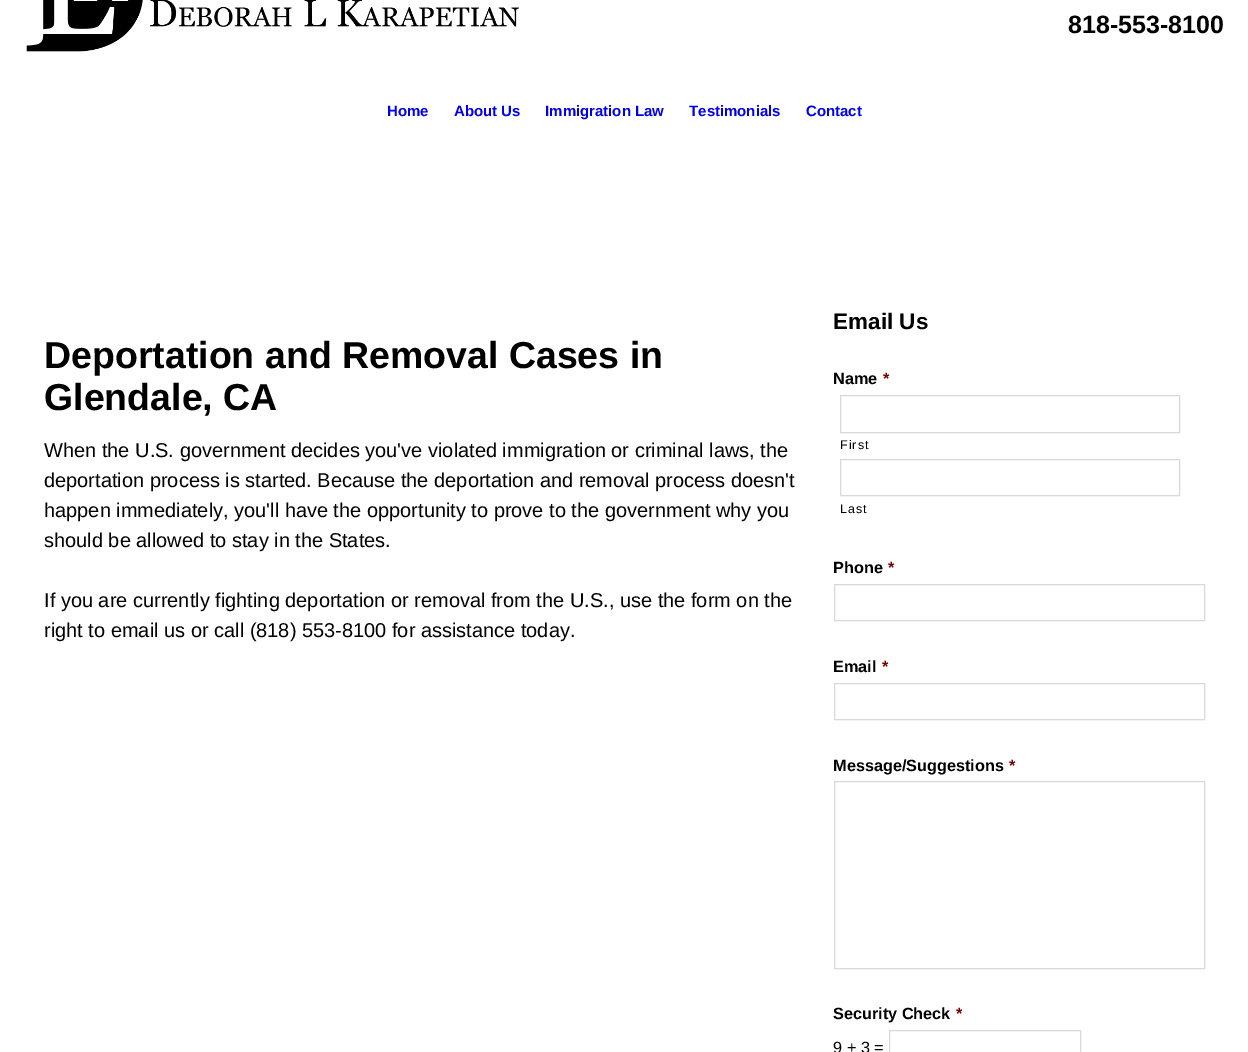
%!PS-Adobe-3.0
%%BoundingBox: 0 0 1248 1052
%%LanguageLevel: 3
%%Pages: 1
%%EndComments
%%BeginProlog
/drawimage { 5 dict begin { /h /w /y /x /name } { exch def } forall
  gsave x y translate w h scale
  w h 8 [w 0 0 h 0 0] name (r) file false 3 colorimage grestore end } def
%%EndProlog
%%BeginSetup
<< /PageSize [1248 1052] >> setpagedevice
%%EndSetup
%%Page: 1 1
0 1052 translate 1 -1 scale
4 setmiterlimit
1 setgray
0 0 1248 1052 rectfill
(images/1.raw) 26 0 493 52 drawimage
0.851 setgray
840.5 395.5 339 37 rectstroke
840.5 459.5 339 36 rectstroke
834.5 584.5 370 36 rectstroke
834.5 683.5 370 36 rectstroke
834.5 781.5 370 187 rectstroke
889.5 1030.5 191 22 rectstroke
/LiberationSans-Bold [25 0 0 -25 0 0] selectfont
0 setgray
1068 33 moveto (818-553-8100) show
/LiberationSans-Bold [15 0 0 -15 0 0] selectfont
0 0 0.933 setrgbcolor
387 116 moveto (Home) show
454 116 moveto (About Us) show
545 116 moveto (Immigration Law) show
689 116 moveto (Testimonials) show
806 116 moveto (Contact) show
/LiberationSans-Bold [37.5 0 0 -37.5 0 0] selectfont
0 setgray
44 368 moveto (Deportation and Removal Cases in) show
44 410 moveto (Glendale, CA) show
/LiberationSans-Regular [20 0 0 -20 0 0] selectfont
44 457 moveto (When the U.S. government decides you've violated immigration or criminal laws, the) show
44 487 moveto (deportation process is started. Because the deportation and removal process doesn't) show
44 517 moveto (happen immediately, you'll have the opportunity to prove to the government why you) show
44 547 moveto (should be allowed to stay in the States.) show
44 607 moveto (If you are currently fighting deportation or removal from the U.S., use the form on the) show
44 637 moveto (right to email us or call \(818\) 553-8100 for assistance today.) show
/LiberationSans-Bold [22.5 0 0 -22.5 0 0] selectfont
833 329 moveto (Email Us) show
/LiberationSans-Bold [16.25 0 0 -16.25 0 0] selectfont
833 384 moveto (Name) show
0.475 0 0 setrgbcolor
883 384 moveto (*) show
/LiberationSans-Regular [12.5 0 0 -12.5 0 0] selectfont
0 setgray
840 449 moveto 1 0 (First) ashow
840 513 moveto 1 0 (Last) ashow
/LiberationSans-Bold [16.25 0 0 -16.25 0 0] selectfont
833 573 moveto (Phone) show
0.475 0 0 setrgbcolor
888 573 moveto (*) show
0 setgray
833 672 moveto (Email) show
0.475 0 0 setrgbcolor
882 672 moveto (*) show
0 setgray
833 771 moveto (Message/Suggestions) show
0.475 0 0 setrgbcolor
1009 771 moveto (*) show
0 setgray
833 1019 moveto (Security Check) show
0.475 0 0 setrgbcolor
956 1019 moveto (*) show
/LiberationSans-Regular [16.25 0 0 -16.25 0 0] selectfont
0 setgray
833 1053 moveto (9 + 3 =) show
showpage
%%EOF
